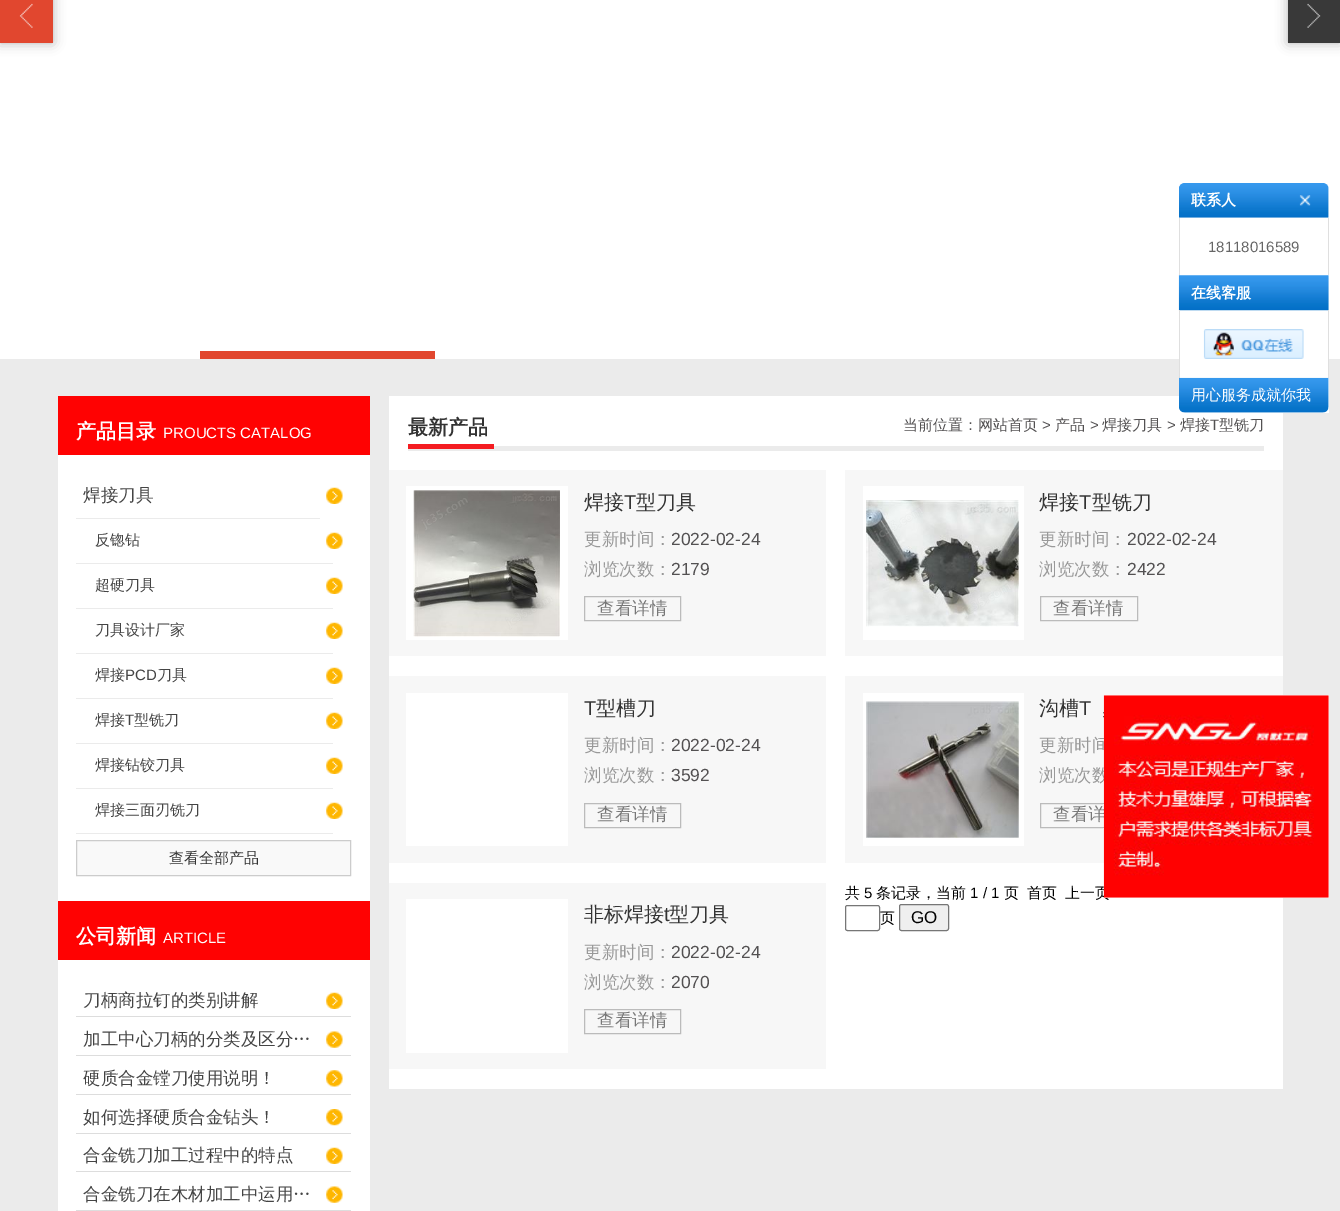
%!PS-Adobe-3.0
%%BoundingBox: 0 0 1340 1211
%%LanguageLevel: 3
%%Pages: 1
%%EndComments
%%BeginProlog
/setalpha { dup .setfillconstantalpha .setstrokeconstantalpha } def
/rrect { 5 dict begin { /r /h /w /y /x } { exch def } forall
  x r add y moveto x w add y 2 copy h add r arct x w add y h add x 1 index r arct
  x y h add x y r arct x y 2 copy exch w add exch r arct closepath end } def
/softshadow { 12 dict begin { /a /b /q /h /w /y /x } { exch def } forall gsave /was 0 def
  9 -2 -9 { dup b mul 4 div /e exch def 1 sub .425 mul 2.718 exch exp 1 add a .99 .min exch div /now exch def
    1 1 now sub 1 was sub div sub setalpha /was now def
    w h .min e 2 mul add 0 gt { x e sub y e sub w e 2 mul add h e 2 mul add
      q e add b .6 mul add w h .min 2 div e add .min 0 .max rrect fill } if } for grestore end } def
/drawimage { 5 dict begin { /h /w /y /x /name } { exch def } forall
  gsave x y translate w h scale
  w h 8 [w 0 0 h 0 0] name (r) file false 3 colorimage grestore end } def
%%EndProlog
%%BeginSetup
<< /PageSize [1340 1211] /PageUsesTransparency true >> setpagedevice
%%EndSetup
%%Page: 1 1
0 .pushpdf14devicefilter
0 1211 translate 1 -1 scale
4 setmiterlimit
1 setgray
0 0 1340 1211 rectfill
0 setgray
0 -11 53 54 0 6 0.3 softshadow
0.882 0.278 0.184 setrgbcolor
0 0 53 43 rectfill
(images/1.raw) 19 3 14 25 drawimage
0 setgray
1288 -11 52 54 0 6 0.3 softshadow
0.224 setgray
1288 0 52 43 rectfill
(images/2.raw) 1307 3 14 25 drawimage
0.882 0.278 0.184 setrgbcolor
200 351 235 8 rectfill
0.922 setgray
0 359 1340 852 rectfill
1 setgray
389 396 894 693 rectfill
1179 359 150 54 rectfill
(images/3.raw) 1179 183 150 35 drawimage
(images/4.raw) 1299 195 12 11 drawimage
0.875 setgray
1328 218 1 57 rectfill
1179 218 1 57 rectfill
(images/5.raw) 1178 275 151 36 drawimage
1328 310 1 68 rectfill
1179 310 1 68 rectfill
(images/6.raw) 1203 329 101 30 drawimage
(images/7.raw) 1179 377 150 36 drawimage
1 setgray
58 455 312 756 rectfill
1 0.008 0.008 setrgbcolor
58 396 312 59 rectfill
(images/8.raw) 326 487 17 17 drawimage
0.922 setgray
76 518 244 1 rectfill
(images/8.raw) 326 532 17 17 drawimage
76 563 257 1 rectfill
(images/8.raw) 326 577 17 17 drawimage
76 608 257 1 rectfill
(images/9.raw) 326 622 17 17 drawimage
76 653 257 1 rectfill
(images/8.raw) 326 667 17 17 drawimage
76 698 257 1 rectfill
(images/8.raw) 326 712 17 17 drawimage
76 743 257 1 rectfill
(images/8.raw) 326 757 17 17 drawimage
76 788 257 1 rectfill
(images/8.raw) 326 802 17 17 drawimage
76 833 257 1 rectfill
0.976 setgray
newpath 76.5 840.5 moveto 350.5 840.5 lineto 350.5 875.5 lineto 76.5 875.5 lineto closepath gsave fill grestore
0.8 setgray
stroke
1 0.008 0.008 setrgbcolor
58 901 312 59 rectfill
(images/8.raw) 326 992 17 17 drawimage
0.867 setgray
76 1016 275 1 rectfill
(images/10.raw) 326 1031 17 17 drawimage
76 1055 275 1 rectfill
(images/11.raw) 326 1070 17 17 drawimage
76 1094 275 1 rectfill
(images/12.raw) 326 1109 17 17 drawimage
76 1133 275 1 rectfill
(images/8.raw) 326 1147 17 17 drawimage
76 1171 275 1 rectfill
(images/10.raw) 326 1186 17 17 drawimage
76 1210 275 1 rectfill
0.922 setgray
408 446 856 5 rectfill
0.957 0.11 0.129 setrgbcolor
408 444 86 5 rectfill
0.969 setgray
389 470 437 186 rectfill
1 setgray
406 486 162 154 rectfill
(images/13.raw) 413 490 147 147 drawimage
0.733 setgray
584.5 596.5 96 24 rectstroke
0.969 setgray
845 470 438 186 rectfill
1 setgray
863 486 161 154 rectfill
(images/14.raw) 866 500 153 127 drawimage
0.733 setgray
1040.5 596.5 97 24 rectstroke
0.969 setgray
389 676 437 187 rectfill
1 setgray
406 693 162 153 rectfill
0.733 setgray
584.5 803.5 96 24 rectstroke
0.969 setgray
845 676 438 187 rectfill
1 setgray
863 693 161 153 rectfill
(images/15.raw) 866 701 153 137 drawimage
0.733 setgray
1040.5 803.5 97 24 rectstroke
0.969 setgray
389 883 437 186 rectfill
1 setgray
406 899 162 154 rectfill
0.733 setgray
584.5 1009.5 96 24 rectstroke
0.463 setgray
845.5 905.5 34 25 2 rrect stroke
0.937 setgray
899.5 904.5 49 26 2 rrect gsave fill grestore
0.463 setgray
stroke
/WenQuanYiZenHei-Bold [15 0 0 -15 0 0] selectfont
1 setgray
1191 205 moveto (联系人) show
/LiberationSans-Regular [15 0 0 -15 0 0] selectfont
0.4 setgray
1208 252 moveto (18118016589) show
/WenQuanYiZenHei-Bold [15 0 0 -15 0 0] selectfont
1 setgray
1191 298 moveto (在线客服) show
/WenQuanYiZenHei-Medium [15 0 0 -15 0 0] selectfont
1191 400 moveto (用心服务成就你我) show
/WenQuanYiZenHei-Bold [20 0 0 -20 0 0] selectfont
76 438 moveto (产品目录) show
/LiberationSans-Regular [15 0 0 -15 0 0] selectfont
163 438 moveto (PROUCTS CATALOG) show
/WenQuanYiZenHei-Medium [17.5 0 0 -17.5 0 0] selectfont
0.267 setgray
83 501 moveto (焊接刀具) show
/WenQuanYiZenHei-Medium [15 0 0 -15 0 0] selectfont
95 545 moveto (反锪钻) show
95 590 moveto (超硬刀具) show
95 635 moveto (刀具设计厂家) show
95 680 moveto (焊接) show
/LiberationSans-Regular [15 0 0 -15 0 0] selectfont
125 680 moveto (PCD) show
/WenQuanYiZenHei-Medium [15 0 0 -15 0 0] selectfont
157 680 moveto (刀具) show
95 725 moveto (焊接) show
/LiberationSans-Regular [15 0 0 -15 0 0] selectfont
125 725 moveto (T) show
/WenQuanYiZenHei-Medium [15 0 0 -15 0 0] selectfont
134 725 moveto (型铣刀) show
95 770 moveto (焊接钻铰刀具) show
95 815 moveto (焊接三面刃铣刀) show
0.2 setgray
169 863 moveto (查看全部产品) show
/WenQuanYiZenHei-Bold [20 0 0 -20 0 0] selectfont
1 setgray
76 943 moveto (公司新闻) show
/LiberationSans-Regular [15 0 0 -15 0 0] selectfont
163 943 moveto (ARTICLE) show
/WenQuanYiZenHei-Medium [17.5 0 0 -17.5 0 0] selectfont
0.267 setgray
83 1006 moveto (刀柄商拉钉的类别讲解) show
83 1045 moveto (加工中心刀柄的分类及区分…) show
83 1084 moveto (硬质合金镗刀使用说明！) show
83 1123 moveto (如何选择硬质合金钻头！) show
83 1161 moveto (合金铣刀加工过程中的特点) show
83 1200 moveto (合金铣刀在木材加工中运用…) show
/WenQuanYiZenHei-Bold [20 0 0 -20 0 0] selectfont
0.2 setgray
408 434 moveto (最新产品) show
/WenQuanYiZenHei-Medium [15 0 0 -15 0 0] selectfont
0.325 0.318 0.322 setrgbcolor
903 430 moveto (当前位置：网站首页) show
/LiberationSans-Regular [15 0 0 -15 0 0] selectfont
1042 430 moveto (>) show
/WenQuanYiZenHei-Medium [15 0 0 -15 0 0] selectfont
1055 430 moveto (产品) show
/LiberationSans-Regular [15 0 0 -15 0 0] selectfont
1090 430 moveto (>) show
/WenQuanYiZenHei-Medium [15 0 0 -15 0 0] selectfont
1102 430 moveto (焊接刀具) show
/LiberationSans-Regular [15 0 0 -15 0 0] selectfont
1167 430 moveto (>) show
/WenQuanYiZenHei-Medium [15 0 0 -15 0 0] selectfont
1180 430 moveto (焊接) show
/LiberationSans-Regular [15 0 0 -15 0 0] selectfont
1210 430 moveto (T) show
/WenQuanYiZenHei-Medium [15 0 0 -15 0 0] selectfont
1219 430 moveto (型铣刀) show
/WenQuanYiZenHei-Medium [20 0 0 -20 0 0] selectfont
0.2 setgray
584 509 moveto (焊接) show
/LiberationSans-Regular [20 0 0 -20 0 0] selectfont
624 509 moveto (T) show
/WenQuanYiZenHei-Medium [20 0 0 -20 0 0] selectfont
636 509 moveto (型刀具) show
/WenQuanYiZenHei-Medium [17.5 0 0 -17.5 0 0] selectfont
0.6 setgray
584 545 moveto (更新时间：) show
/LiberationSans-Regular [17.5 0 0 -17.5 0 0] selectfont
0.325 0.318 0.322 setrgbcolor
671 545 moveto (2022-02-24) show
/WenQuanYiZenHei-Medium [17.5 0 0 -17.5 0 0] selectfont
0.6 setgray
584 575 moveto (浏览次数：) show
/LiberationSans-Regular [17.5 0 0 -17.5 0 0] selectfont
0.325 0.318 0.322 setrgbcolor
671 575 moveto (2179) show
/WenQuanYiZenHei-Medium [17.5 0 0 -17.5 0 0] selectfont
0.471 setgray
597 614 moveto (查看详情) show
/WenQuanYiZenHei-Medium [20 0 0 -20 0 0] selectfont
0.2 setgray
1039 509 moveto (焊接) show
/LiberationSans-Regular [20 0 0 -20 0 0] selectfont
1079 509 moveto (T) show
/WenQuanYiZenHei-Medium [20 0 0 -20 0 0] selectfont
1092 509 moveto (型铣刀) show
/WenQuanYiZenHei-Medium [17.5 0 0 -17.5 0 0] selectfont
0.6 setgray
1039 545 moveto (更新时间：) show
/LiberationSans-Regular [17.5 0 0 -17.5 0 0] selectfont
0.325 0.318 0.322 setrgbcolor
1127 545 moveto (2022-02-24) show
/WenQuanYiZenHei-Medium [17.5 0 0 -17.5 0 0] selectfont
0.6 setgray
1039 575 moveto (浏览次数：) show
/LiberationSans-Regular [17.5 0 0 -17.5 0 0] selectfont
0.325 0.318 0.322 setrgbcolor
1127 575 moveto (2422) show
/WenQuanYiZenHei-Medium [17.5 0 0 -17.5 0 0] selectfont
0.471 setgray
1053 614 moveto (查看详情) show
/LiberationSans-Regular [20 0 0 -20 0 0] selectfont
0.2 setgray
584 715 moveto (T) show
/WenQuanYiZenHei-Medium [20 0 0 -20 0 0] selectfont
596 715 moveto (型槽刀) show
/WenQuanYiZenHei-Medium [17.5 0 0 -17.5 0 0] selectfont
0.6 setgray
584 751 moveto (更新时间：) show
/LiberationSans-Regular [17.5 0 0 -17.5 0 0] selectfont
0.325 0.318 0.322 setrgbcolor
671 751 moveto (2022-02-24) show
/WenQuanYiZenHei-Medium [17.5 0 0 -17.5 0 0] selectfont
0.6 setgray
584 781 moveto (浏览次数：) show
/LiberationSans-Regular [17.5 0 0 -17.5 0 0] selectfont
0.325 0.318 0.322 setrgbcolor
671 781 moveto (3592) show
/WenQuanYiZenHei-Medium [17.5 0 0 -17.5 0 0] selectfont
0.471 setgray
597 820 moveto (查看详情) show
/WenQuanYiZenHei-Medium [20 0 0 -20 0 0] selectfont
0.2 setgray
1039 715 moveto (沟槽) show
/LiberationSans-Regular [20 0 0 -20 0 0] selectfont
1079 715 moveto (T) show
/WenQuanYiZenHei-Medium [17.5 0 0 -17.5 0 0] selectfont
0.6 setgray
1039 751 moveto (更新时间) show
1039 781 moveto (浏览次数) show
0.471 setgray
1053 820 moveto (查看详) show
/WenQuanYiZenHei-Medium [20 0 0 -20 0 0] selectfont
0.2 setgray
584 921 moveto (非标焊接) show
/LiberationSans-Regular [20 0 0 -20 0 0] selectfont
664 921 moveto (t) show
/WenQuanYiZenHei-Medium [20 0 0 -20 0 0] selectfont
669 921 moveto (型刀具) show
/WenQuanYiZenHei-Medium [17.5 0 0 -17.5 0 0] selectfont
0.6 setgray
584 958 moveto (更新时间：) show
/LiberationSans-Regular [17.5 0 0 -17.5 0 0] selectfont
0.325 0.318 0.322 setrgbcolor
671 958 moveto (2022-02-24) show
/WenQuanYiZenHei-Medium [17.5 0 0 -17.5 0 0] selectfont
0.6 setgray
584 988 moveto (浏览次数：) show
/LiberationSans-Regular [17.5 0 0 -17.5 0 0] selectfont
0.325 0.318 0.322 setrgbcolor
671 988 moveto (2070) show
/WenQuanYiZenHei-Medium [17.5 0 0 -17.5 0 0] selectfont
0.471 setgray
597 1026 moveto (查看详情) show
/WenQuanYiZenHei-Medium [15 0 0 -15 0 0] selectfont
0 setgray
845 898 moveto (共) show
/LiberationSans-Regular [15 0 0 -15 0 0] selectfont
864 898 moveto (5) show
/WenQuanYiZenHei-Medium [15 0 0 -15 0 0] selectfont
876 898 moveto (条记录，当前) show
/LiberationSans-Regular [15 0 0 -15 0 0] selectfont
970 898 moveto (1 / 1) show
/WenQuanYiZenHei-Medium [15 0 0 -15 0 0] selectfont
1004 898 moveto (页) show
1027 898 moveto (首页) show
1065 898 moveto (上一页) show
880 923 moveto (页) show
/LiberationSans-Regular [17 0 0 -17 0 0] selectfont
911 923 moveto (GO) show
1 setgray
1104 695 225 203 rectfill
(images/16.raw) 1103 695 226 203 drawimage
.poppdf14devicefilter showpage
%%EOF
